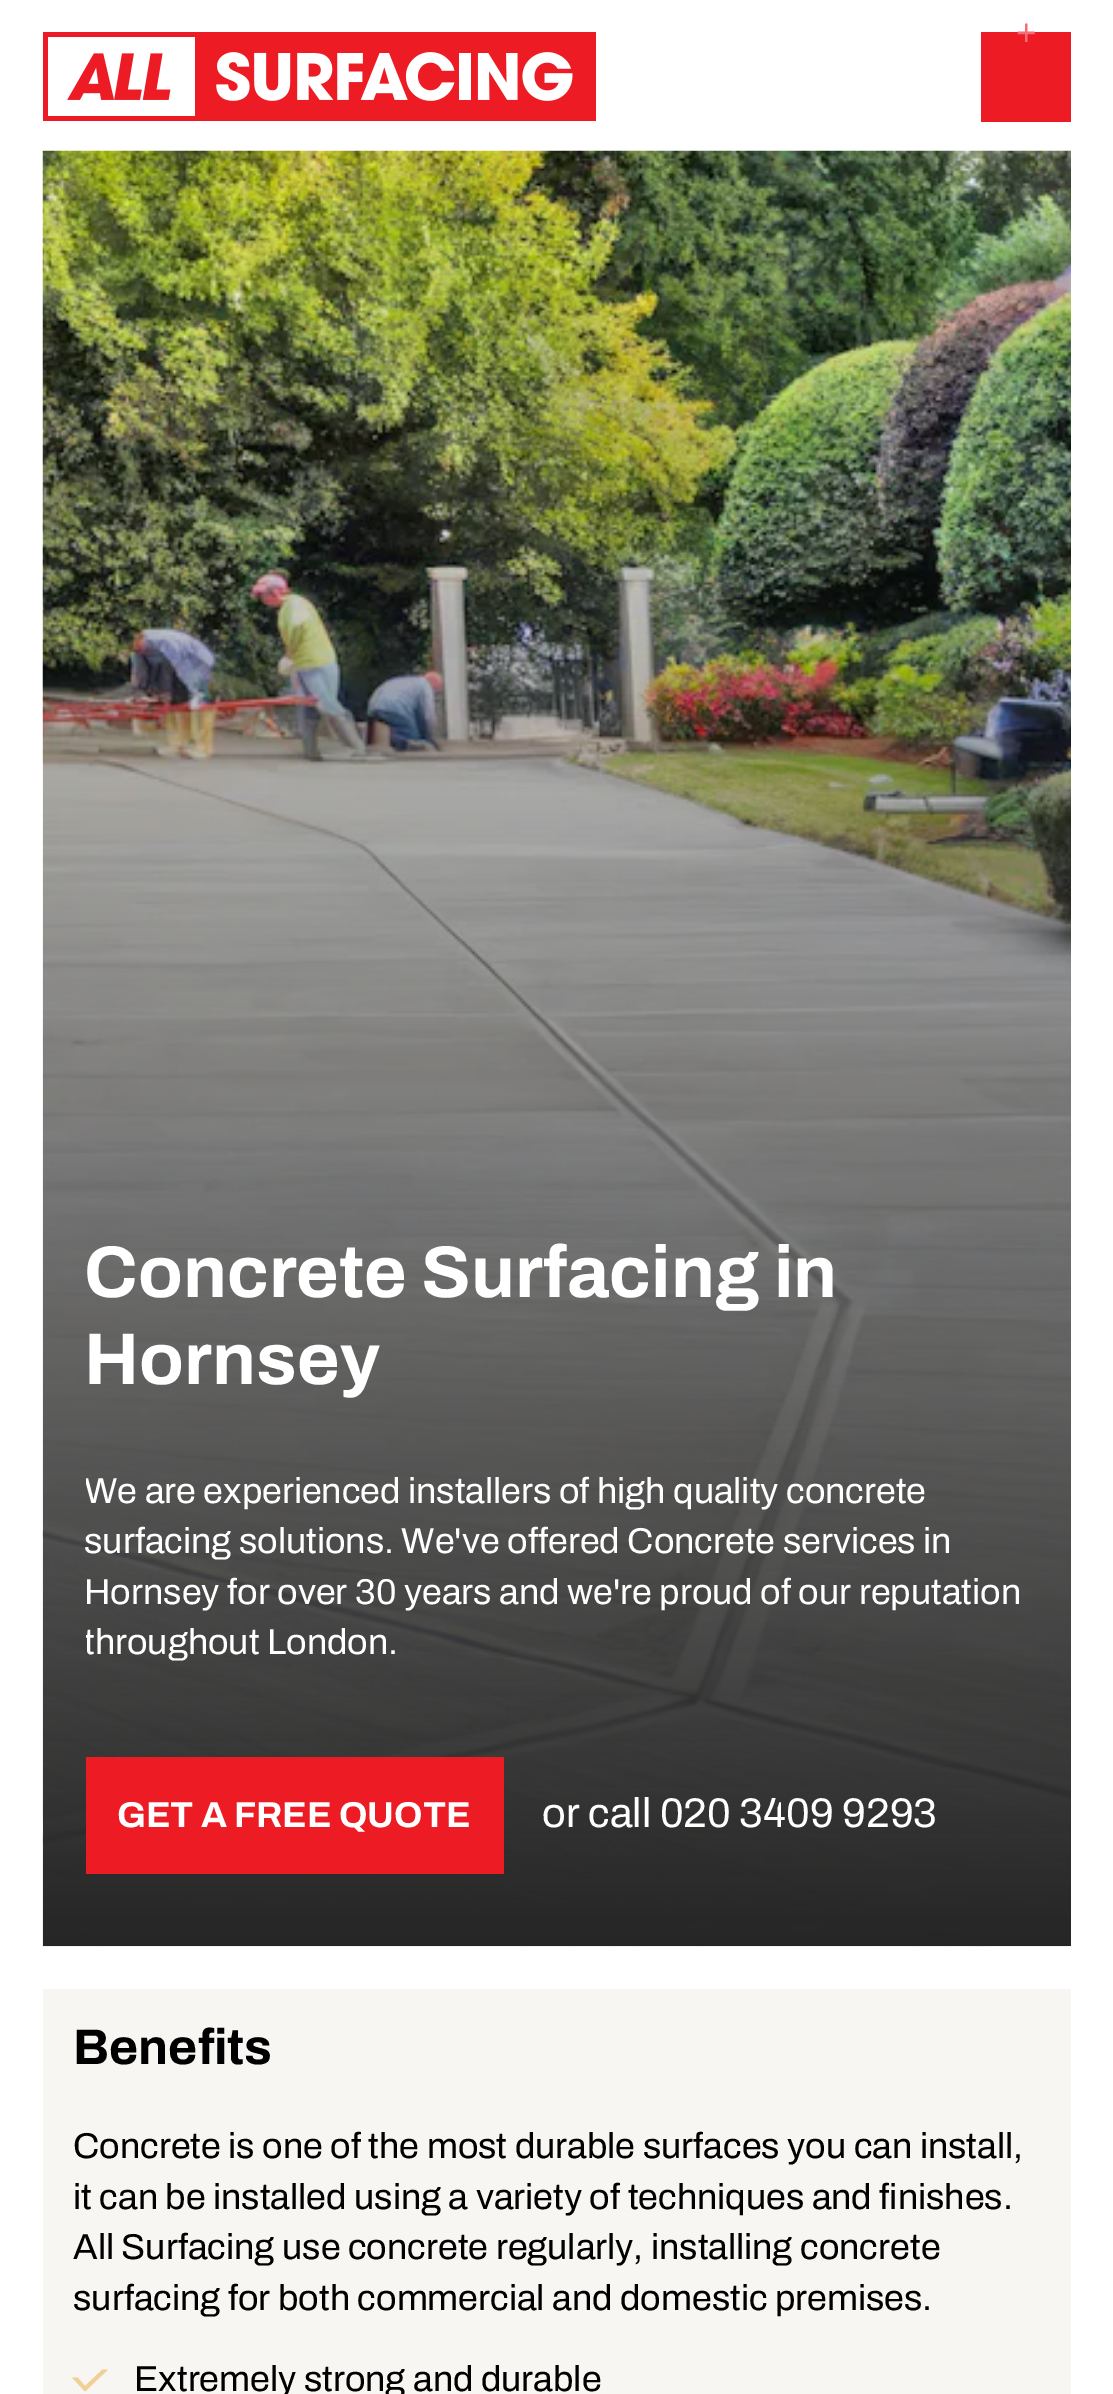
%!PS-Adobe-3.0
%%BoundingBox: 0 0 1113 2394
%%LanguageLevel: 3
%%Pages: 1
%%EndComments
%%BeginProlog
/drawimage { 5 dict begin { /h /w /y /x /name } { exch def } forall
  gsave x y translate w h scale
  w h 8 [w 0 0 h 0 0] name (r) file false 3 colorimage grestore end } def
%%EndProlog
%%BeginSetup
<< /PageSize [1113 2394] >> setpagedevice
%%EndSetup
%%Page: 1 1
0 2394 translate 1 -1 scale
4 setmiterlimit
1 setgray
0 0 1113 2394 rectfill
(images/1.raw) 43 32 553 89 drawimage
0.929 0.106 0.141 setrgbcolor
981 32 90 90 rectfill
(images/2.raw) 42 150 1029 1797 drawimage
86 1757 418 117 rectfill
0.969 0.965 0.953 setrgbcolor
43 1989 1028 405 rectfill
0.941 0.816 0.584 setrgbcolor
newpath 108 2369.5 moveto 85 2391.5 lineto 72 2377.5 lineto 77.5 2377.5 lineto 85 2386 lineto 102.5 2369.5 lineto closepath fill
/Archivo-Regular [36 0 0 -36 0 0] selectfont
0.957 0.431 0.451 setrgbcolor
1015 42 moveto (+) show
/Archivo-Bold [73.25 0 0 -73.25 0 0] selectfont
1 setgray
84 1297 moveto (Concrete Surfacing in) show
84 1384 moveto (Hornsey) show
gsave
86 1438 942 290 rectclip
/Archivo-Regular [36 0 0 -36 0 0] selectfont
84 1503 moveto (We are experienced installers of high quality concrete) show
grestore
/Archivo-Regular [36 0 0 -36 0 0] selectfont
84 1553 moveto (surfacing solutions. We've offered Concrete services in) show
84 1604 moveto (Hornsey for over 30 years and we're proud of our reputation) show
gsave
86 1438 942 290 rectclip
84 1654 moveto (throughout London.) show
grestore
/Archivo-Bold [36 0 0 -36 0 0] selectfont
117 1827 moveto (GET A FREE QUOTE) show
/Archivo-Regular [41.5 0 0 -41.5 0 0] selectfont
542 1827 moveto (or call 020 3409 9293) show
/Archivo-Bold [50 0 0 -50 0 0] selectfont
0 setgray
73 2064 moveto (Benefits) show
/Archivo-Regular [36 0 0 -36 0 0] selectfont
73 2158 moveto (Concrete is one of the most durable surfaces you can install,) show
73 2209 moveto (it can be installed using a variety of techniques and finishes.) show
73 2259 moveto (All Surfacing use concrete regularly, installing concrete) show
73 2310 moveto (surfacing for both commercial and domestic premises.) show
134 2391 moveto (Extremely strong and durable) show
showpage
%%EOF
